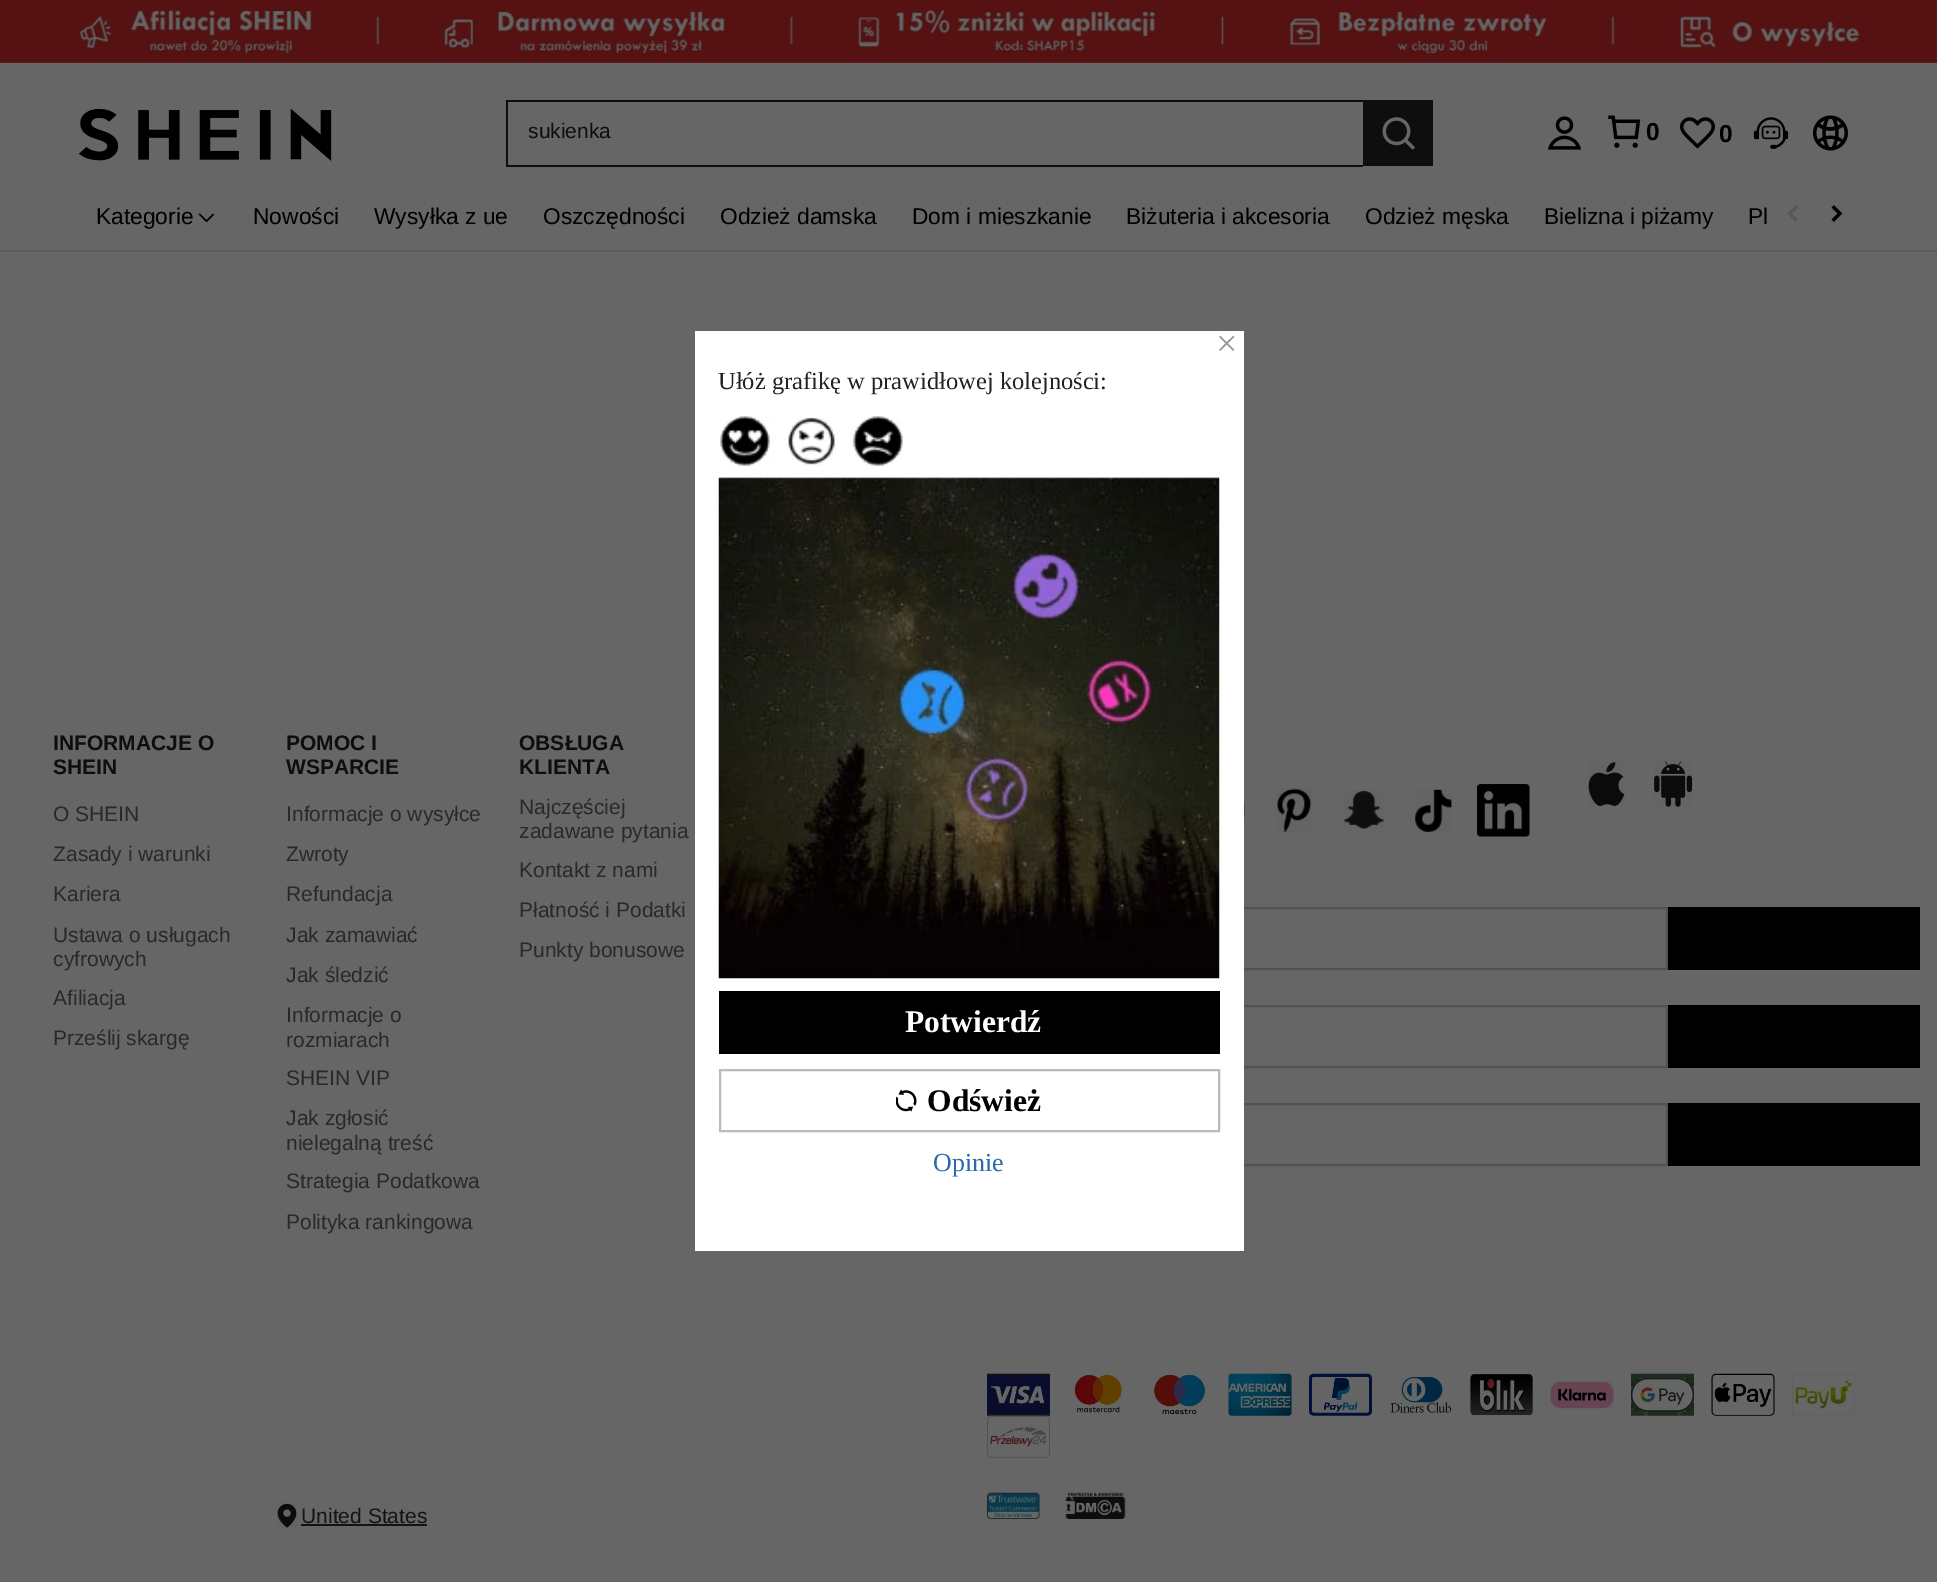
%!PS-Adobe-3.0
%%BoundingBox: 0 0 1937 1582
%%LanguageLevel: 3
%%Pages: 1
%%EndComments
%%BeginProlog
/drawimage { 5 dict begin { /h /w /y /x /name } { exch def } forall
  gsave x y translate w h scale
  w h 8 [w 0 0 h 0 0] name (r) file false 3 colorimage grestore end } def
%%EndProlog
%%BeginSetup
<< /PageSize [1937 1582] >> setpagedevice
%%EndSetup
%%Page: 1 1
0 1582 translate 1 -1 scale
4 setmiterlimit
0.4 setgray
0 0 1937 1582 rectfill
(images/1.raw) 0 0 1937 63 drawimage
(images/2.raw) 79 109 253 52 drawimage
0.055 setgray
506 100 857 2 rectfill
506 165 857 2 rectfill
506 100 2 66 rectfill
1363 100 70 66 rectfill
(images/3.raw) 1382 117 33 33 drawimage
(images/4.raw) 1547 116 35 34 drawimage
(images/5.raw) 1608 115 33 33 drawimage
(images/6.raw) 1680 117 35 32 drawimage
(images/7.raw) 1753 117 36 32 drawimage
(images/8.raw) 1813 115 35 36 drawimage
0.361 setgray
0 250 1937 2 rectfill
(images/9.raw) 198 213 17 10 drawimage
(images/10.raw) 1787 205 11 17 drawimage
(images/11.raw) 1831 205 12 17 drawimage
(images/12.raw) 1244 801 1 18 drawimage
(images/13.raw) 1277 788 35 44 drawimage
(images/14.raw) 1343 790 41 39 drawimage
(images/15.raw) 1415 789 37 43 drawimage
(images/16.raw) 1477 784 53 53 drawimage
(images/17.raw) 1588 762 37 44 drawimage
(images/18.raw) 1654 761 39 46 drawimage
0.322 setgray
2 setlinewidth
988 908 679 61 rectstroke
0 setgray
1668 907 252 63 rectfill
0.322 setgray
1128 1006 539 61 rectstroke
0 setgray
1668 1005 252 63 rectfill
0.322 setgray
1128 1104 539 61 rectstroke
0 setgray
1668 1103 252 63 rectfill
(images/19.raw) 987 1373 63 43 drawimage
(images/20.raw) 1068 1374 62 41 drawimage
(images/21.raw) 1148 1374 63 41 drawimage
(images/22.raw) 1228 1373 64 43 drawimage
(images/23.raw) 1309 1373 63 43 drawimage
(images/24.raw) 1390 1374 62 41 drawimage
(images/25.raw) 1470 1374 63 42 drawimage
(images/26.raw) 1550 1381 64 28 drawimage
(images/27.raw) 1631 1373 63 43 drawimage
(images/28.raw) 1711 1373 64 43 drawimage
(images/29.raw) 1792 1374 63 42 drawimage
(images/30.raw) 987 1415 63 43 drawimage
(images/31.raw) 277 1503 20 25 drawimage
0.078 setgray
301 1524 126 2 rectfill
(images/32.raw) 987 1492 53 27 drawimage
(images/33.raw) 1065 1492 61 27 drawimage
1 setgray
695 331 549 920 rectfill
(images/34.raw) 720 416 183 50 drawimage
(images/35.raw) 718 477 502 502 drawimage
0 setgray
719 991 501 63 rectfill
0.733 setgray
720 1070 499 61 rectstroke
(images/36.raw) 896 1089 21 23 drawimage
gsave
529 121 82 24 rectclip
/LiberationSans-Regular [21 0 0 -21 0 0] selectfont
0.055 setgray
528 138 moveto (sukienka) show
grestore
/LiberationSans-Bold [24.5 0 0 -24.5 0 0] selectfont
0 setgray
1646 140 moveto (0) show
1719 142 moveto (0) show
/LiberationSans-Regular [22.75 0 0 -22.75 0 0] selectfont
96 224 moveto (Kategorie) show
253 224 moveto (Nowości) show
374 224 moveto (Wysyłka z ue) show
543 224 moveto (Oszczędności) show
720 224 moveto (Odzież damska) show
912 224 moveto (Dom i mieszkanie) show
1126 224 moveto (Biżuteria i akcesoria) show
1365 224 moveto (Odzież męska) show
1544 224 moveto (Bielizna i piżamy) show
1748 224 moveto (Pl) show
/LiberationSans-Bold [21 0 0 -21 0 0] selectfont
0.055 setgray
53 750 moveto (INFORMACJE O) show
53 774 moveto (SHEIN) show
/LiberationSans-Regular [21 0 0 -21 0 0] selectfont
0.161 setgray
53 821 moveto (O SHEIN) show
53 861 moveto (Zasady i warunki) show
53 901 moveto (Kariera) show
53 942 moveto (Ustawa o usługach) show
53 966 moveto (cyfrowych) show
53 1005 moveto (Afiliacja) show
53 1045 moveto (Prześlij skargę) show
/LiberationSans-Bold [21 0 0 -21 0 0] selectfont
0.055 setgray
286 750 moveto (POMOC I) show
286 774 moveto (WSPARCIE) show
/LiberationSans-Regular [21 0 0 -21 0 0] selectfont
0.161 setgray
286 821 moveto (Informacje o wysyłce) show
286 861 moveto (Zwroty) show
286 901 moveto (Refundacja) show
286 942 moveto (Jak zamawiać) show
286 982 moveto (Jak śledzić) show
286 1022 moveto (Informacje o) show
286 1047 moveto (rozmiarach) show
286 1085 moveto (SHEIN VIP) show
286 1125 moveto (Jak zgłosić) show
286 1150 moveto (nielegalną treść) show
286 1188 moveto (Strategia Podatkowa) show
286 1229 moveto (Polityka rankingowa) show
/LiberationSans-Bold [21 0 0 -21 0 0] selectfont
0.055 setgray
519 750 moveto (OBSŁUGA) show
519 774 moveto (KLIENTA) show
/LiberationSans-Regular [21 0 0 -21 0 0] selectfont
0.161 setgray
519 814 moveto (Najczęściej) show
519 838 moveto (zadawane pytania) show
519 877 moveto (Kontakt z nami) show
519 917 moveto (Płatność i Podatki) show
519 957 moveto (Punkty bonusowe) show
0.078 setgray
301 1523 moveto (United States) show
/LiberationSerif-Regular [38 0 0 -38 0 0] selectfont
0.584 setgray
1216 356 moveto (×) show
/LiberationSerif-Regular [24.5 0 0 -24.5 0 0] selectfont
0.133 setgray
718 389 moveto (Ułóż grafikę w prawidłowej kolejności:) show
/LiberationSerif-Bold [31.5 0 0 -31.5 0 0] selectfont
1 setgray
905 1032 moveto (Potwierdź) show
0 setgray
927 1111 moveto (Odśwież) show
/LiberationSerif-Regular [26 0 0 -26 0 0] selectfont
0.176 0.408 0.659 setrgbcolor
933 1171 moveto (Opinie) show
showpage
%%EOF
